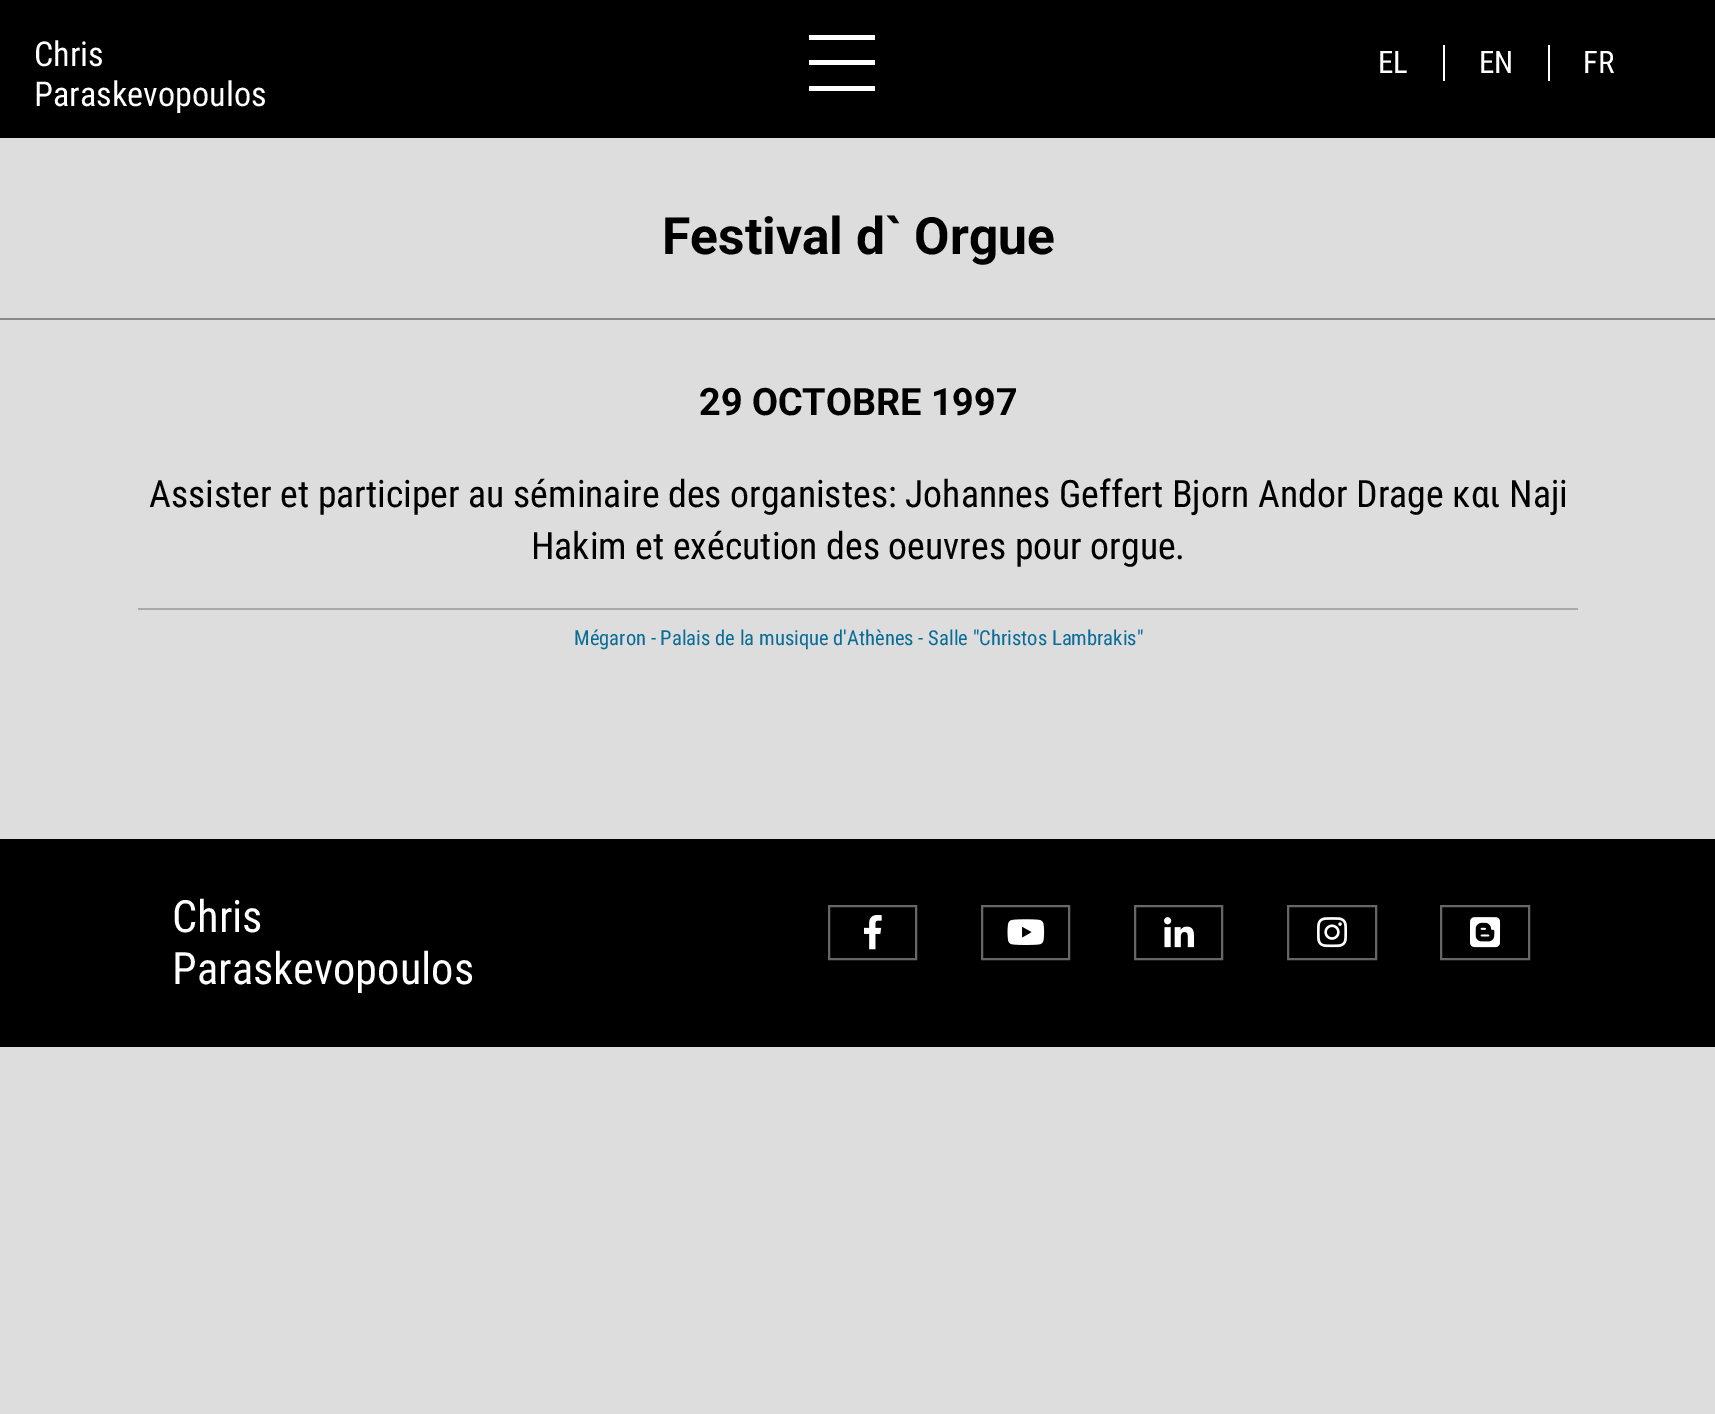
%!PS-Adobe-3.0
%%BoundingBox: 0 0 1715 1414
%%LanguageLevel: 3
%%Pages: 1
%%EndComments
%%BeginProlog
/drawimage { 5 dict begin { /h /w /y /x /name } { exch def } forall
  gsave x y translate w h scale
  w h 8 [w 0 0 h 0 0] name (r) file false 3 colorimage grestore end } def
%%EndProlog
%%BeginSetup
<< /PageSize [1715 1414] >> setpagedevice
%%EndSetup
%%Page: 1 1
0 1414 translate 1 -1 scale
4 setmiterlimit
0.867 setgray
0 0 1715 1414 rectfill
0 setgray
0 0 1715 138 rectfill
1 setgray
809 35 66 5 rectfill
809 60 66 5 rectfill
809 86 66 5 rectfill
1443 45 2 36 rectfill
1548 45 2 36 rectfill
0.533 setgray
0 318 1715 2 rectfill
0.667 setgray
138 608 1440 2 rectfill
0 setgray
0 839 1715 208 rectfill
0.4 setgray
2 setlinewidth
829 906 87 53 rectstroke
(images/1.raw) 864 915 18 35 drawimage
982 906 87 53 rectstroke
(images/2.raw) 1007 919 38 26 drawimage
1135 906 87 53 rectstroke
(images/3.raw) 1164 917 31 31 drawimage
1288 906 88 53 rectstroke
(images/4.raw) 1317 917 31 31 drawimage
1441 906 88 53 rectstroke
(images/5.raw) 1470 917 31 31 drawimage
/RobotoCondensed-Regular [34.25 0 0 -34.25 0 0] selectfont
1 setgray
34 66 moveto (Chris) show
34 106 moveto (Paraskevopoulos) show
/RobotoCondensed-Regular [31 0 0 -31 0 0] selectfont
1378 73 moveto (EL) show
1479 73 moveto (EN) show
1583 73 moveto (FR) show
/Roboto-Bold [51.5 0 0 -51.5 0 0] selectfont
0 setgray
662 254 moveto (Festival d` Orgue) show
/Roboto-Bold [37.75 0 0 -37.75 0 0] selectfont
699 415 moveto (29 OCTOBRE 1997) show
/RobotoCondensed-Regular [37.75 0 0 -37.75 0 0] selectfont
149 507 moveto (Assister et participer au séminaire des organistes: Johannes Geffert Bjorn Andor Drage και Naji) show
531 559 moveto (Hakim et exécution des oeuvres pour orgue.) show
/RobotoCondensed-Regular [20.6 0 0 -20.6 0 0] selectfont
0.039 0.427 0.596 setrgbcolor
574 645 moveto (Mégaron - Palais de la musique d'Athènes - Salle "Christos Lambrakis") show
/RobotoCondensed-Regular [44.5 0 0 -44.5 0 0] selectfont
1 setgray
172 932 moveto (Chris) show
172 984 moveto (Paraskevopoulos) show
showpage
%%EOF
